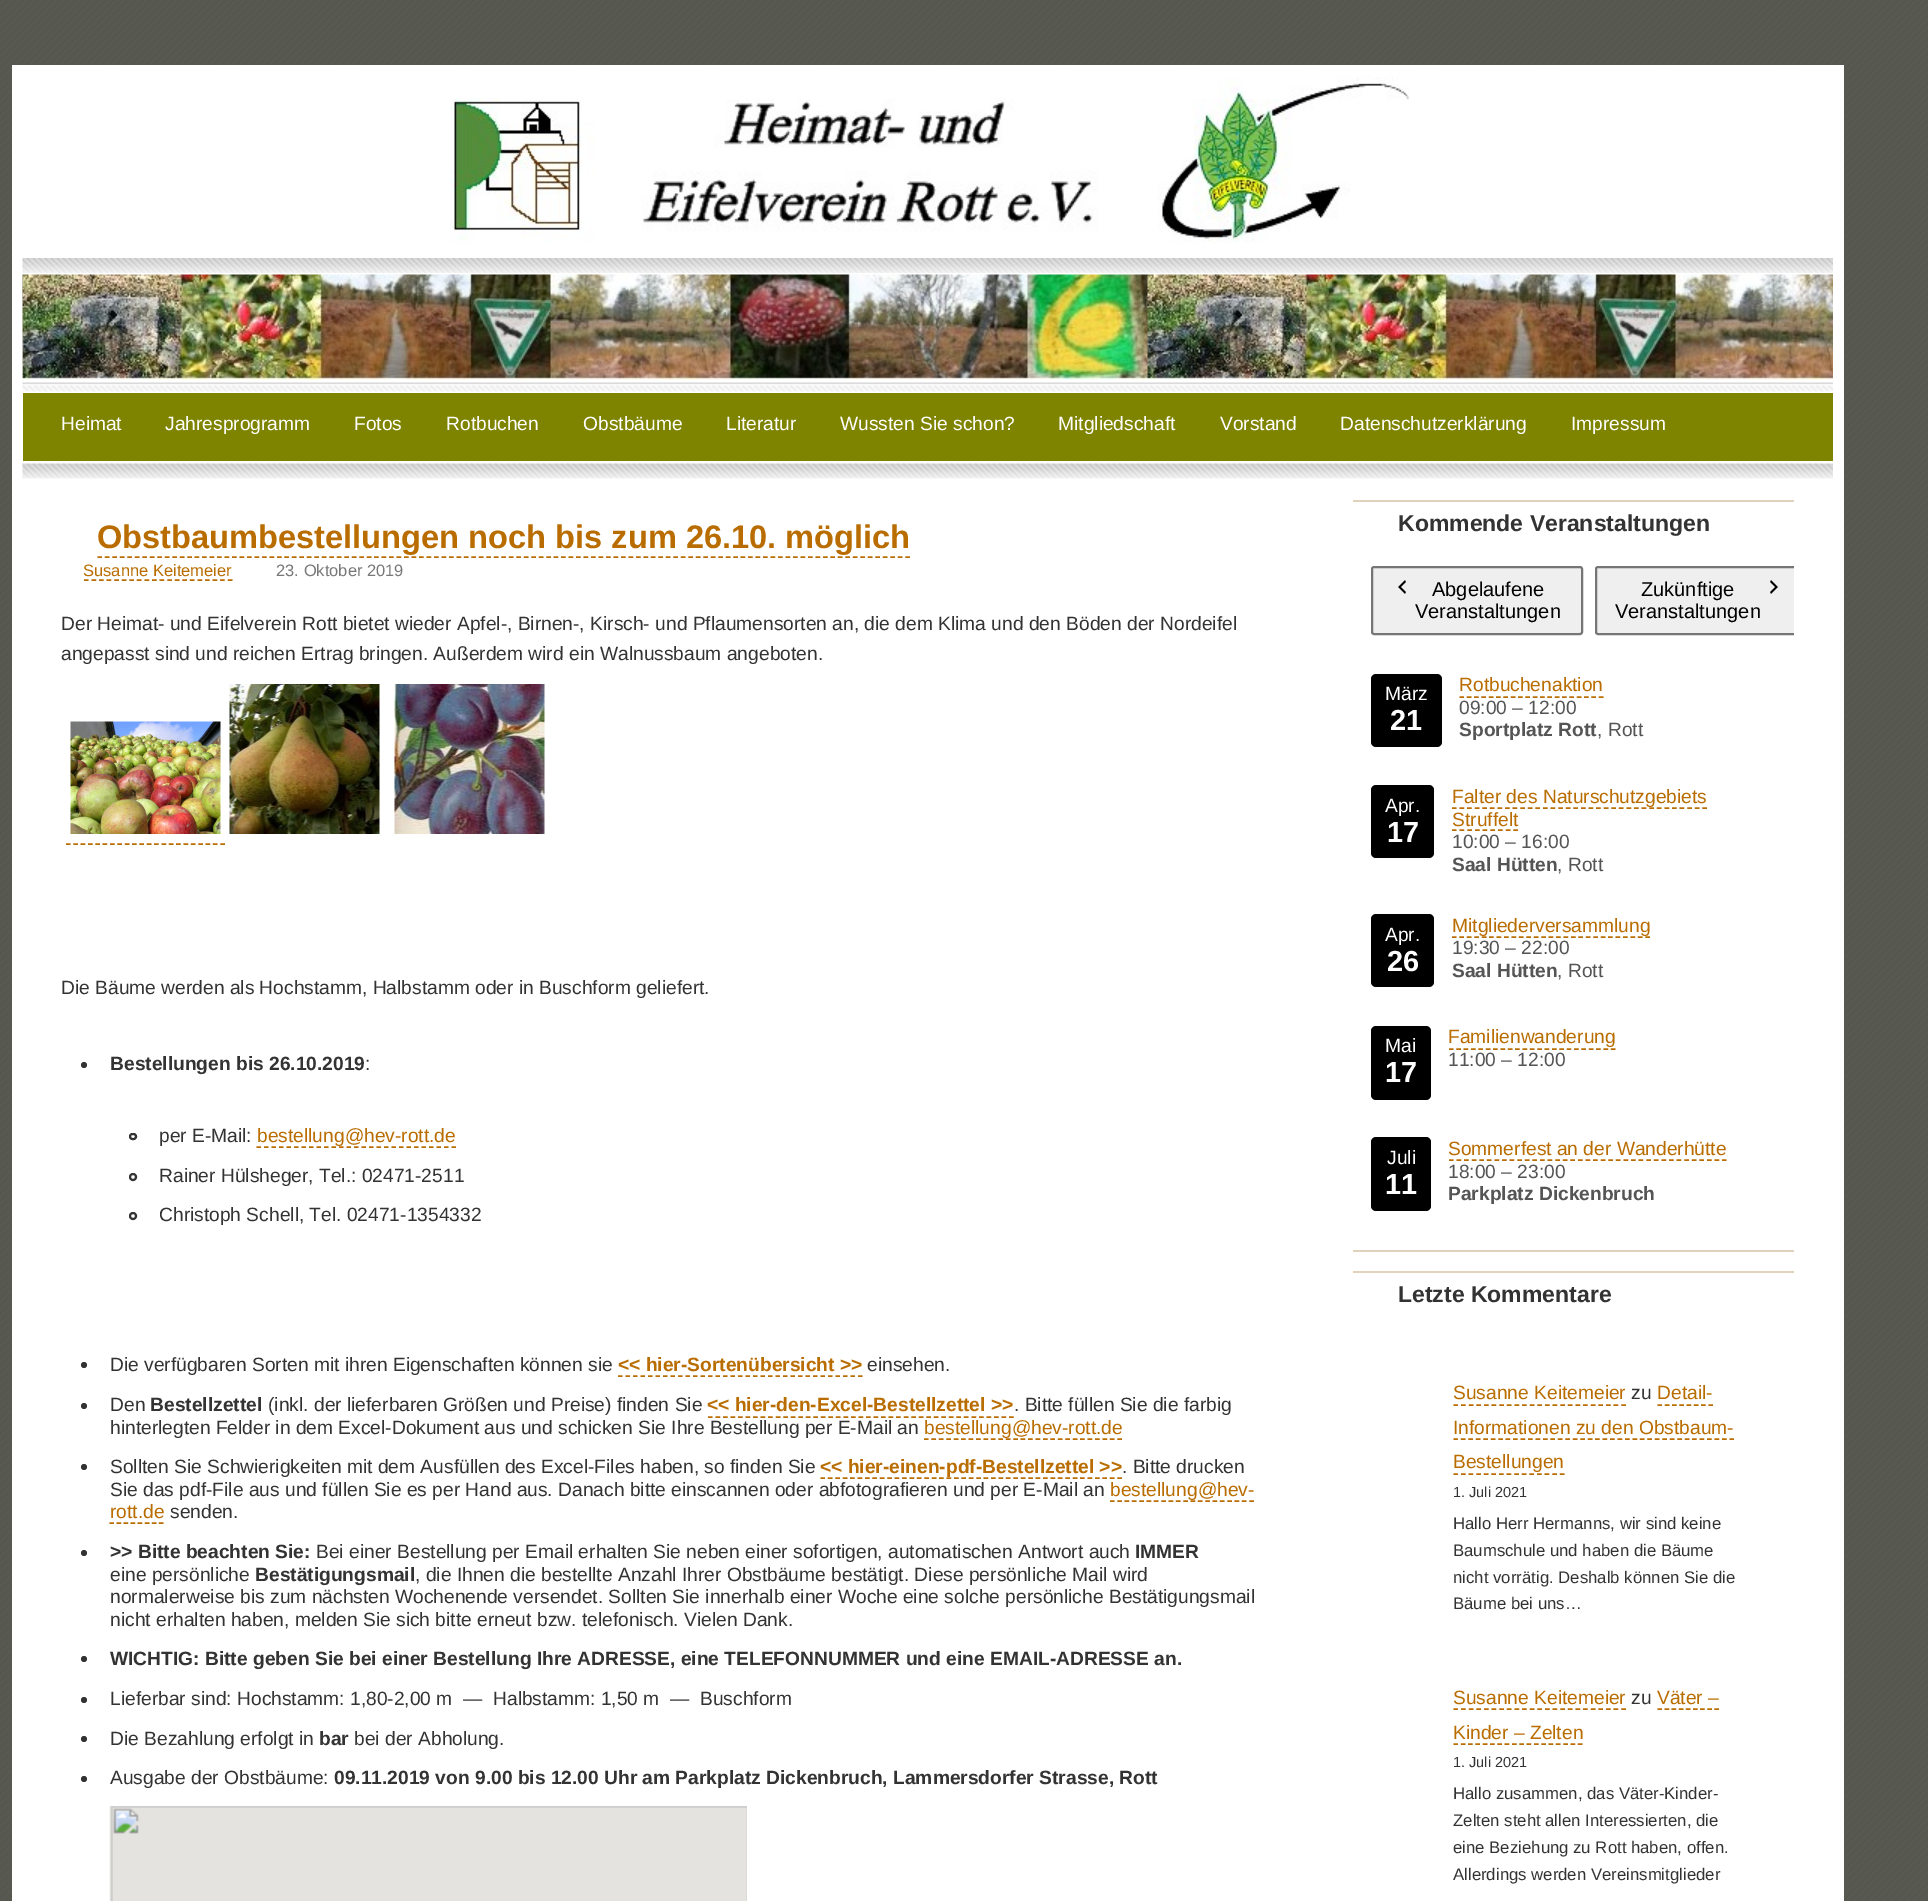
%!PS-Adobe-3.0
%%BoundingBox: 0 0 1928 1901
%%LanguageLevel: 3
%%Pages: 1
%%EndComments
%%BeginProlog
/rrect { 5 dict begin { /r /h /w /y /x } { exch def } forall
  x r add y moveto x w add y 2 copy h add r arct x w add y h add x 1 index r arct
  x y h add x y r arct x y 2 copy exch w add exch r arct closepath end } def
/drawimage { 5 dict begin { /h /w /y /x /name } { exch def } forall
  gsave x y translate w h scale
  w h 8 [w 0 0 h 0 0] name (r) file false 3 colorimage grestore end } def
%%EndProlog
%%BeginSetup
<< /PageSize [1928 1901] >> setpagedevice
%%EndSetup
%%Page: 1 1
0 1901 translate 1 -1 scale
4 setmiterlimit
1 setgray
0 0 1928 1901 rectfill
(images/1.raw) 0 0 1928 1901 drawimage
12 65 1832 1836 rectfill
(images/2.raw) 450 77 959 166 drawimage
(images/3.raw) 22 258 1811 15 drawimage
(images/4.raw) 22 274 1811 106 drawimage
(images/5.raw) 22 382 1811 10 drawimage
0.498 0.518 0 setrgbcolor
23 393 1810 68 rectfill
(images/6.raw) 22 463 1811 16 drawimage
0.725 0.427 0 setrgbcolor
1.5 setlinewidth
[4.5 2.98] 0 setdash
newpath 97.5 557 moveto 910.5 557 lineto stroke
[4.5 3.07] 0 setdash
newpath 84 580 moveto 232.5 580 lineto stroke
(images/7.raw) 70 721 151 113 drawimage
(images/8.raw) 229 684 151 150 drawimage
(images/9.raw) 394 684 151 150 drawimage
[4.5 2.85] 0 setdash
newpath 66 844 moveto 225 844 lineto stroke
0.2 setgray
newpath 84 1065 3 0 360 arc closepath fill
2 setlinewidth
[] 0 setdash
130 1134 6 5 2.5 rrect stroke
0.725 0.427 0 setrgbcolor
1.5 setlinewidth
[4.5 3] 0 setdash
newpath 256.5 1147 moveto 456 1147 lineto stroke
0.2 setgray
2 setlinewidth
[] 0 setdash
newpath 133 1177 3 0 360 arc closepath stroke
newpath 133 1216 3 0 360 arc closepath stroke
newpath 84 1365 3 0 360 arc closepath fill
0.725 0.427 0 setrgbcolor
1.5 setlinewidth
[4.5 3] 0 setdash
newpath 618 1376 moveto 862.5 1376 lineto stroke
0.2 setgray
newpath 84 1406 3 0 360 arc closepath fill
0.725 0.427 0 setrgbcolor
[4.5 3.03] 0 setdash
newpath 708 1417 moveto 1014 1417 lineto stroke
[4.5 2.94] 0 setdash
newpath 924 1439 moveto 1122 1439 lineto stroke
0.2 setgray
newpath 84 1467 3 0 360 arc closepath fill
0.725 0.427 0 setrgbcolor
[4.5 2.92] 0 setdash
newpath 820.5 1478 moveto 1122 1478 lineto stroke
[4.5 2.83] 0 setdash
newpath 1110 1501 moveto 1254 1501 lineto stroke
[4.5 2.56] 0 setdash
newpath 109.5 1523 moveto 163.5 1523 lineto stroke
0.2 setgray
newpath 84 1553 3 0 360 arc closepath fill
newpath 84 1659 3 0 360 arc closepath fill
newpath 84 1700 3 0 360 arc closepath fill
newpath 84 1739 3 0 360 arc closepath fill
newpath 84 1779 3 0 360 arc closepath fill
(images/10.raw) 109 1806 638 95 drawimage
0.882 0.824 0.741 setrgbcolor
1353 500 441 2 rectfill
1353 1250 441 2 rectfill
0.937 setgray
1372 567 210 67 2 rrect gsave fill grestore
0.463 setgray
2 setlinewidth
[] 0 setdash
stroke
(images/11.raw) 1398 580 8 14 drawimage
0.937 setgray
newpath 1598 566 moveto 1794 566 lineto 1794 635 lineto 1598 635 lineto 1596.5 635 1595 633.5 1595 632 curveto 1595 569 lineto 1595 567.5 1596.5 566 1598 566 curveto closepath fill
gsave
1353 480 441 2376 rectclip
0.463 setgray
1596 567 208 67 2 rrect stroke
grestore
(images/12.raw) 1770 580 8 14 drawimage
0 setgray
1371 674 71 73 5 rrect fill
0.725 0.427 0 setrgbcolor
1.5 setlinewidth
[4.5 2.83] 0 setdash
newpath 1459.5 697 moveto 1603.5 697 lineto stroke
0 setgray
1371 785 63 73 5 rrect fill
0.725 0.427 0 setrgbcolor
[4.5 3.09] 0 setdash
newpath 1452 808 moveto 1707 808 lineto stroke
[4.5 3.18] 0 setdash
newpath 1452 830 moveto 1518 830 lineto stroke
0 setgray
1371 914 63 73 5 rrect fill
0.725 0.427 0 setrgbcolor
[4.5 2.94] 0 setdash
newpath 1452 937 moveto 1650 937 lineto stroke
0 setgray
1371 1026 60 74 5 rrect fill
0.725 0.427 0 setrgbcolor
[4.5 2.86] 0 setdash
newpath 1449 1049 moveto 1615.5 1049 lineto stroke
0 setgray
1371 1137 60 74 5 rrect fill
0.725 0.427 0 setrgbcolor
[4.5 3.09] 0 setdash
newpath 1449 1160 moveto 1726.5 1160 lineto stroke
0.882 0.824 0.741 setrgbcolor
1353 1271 441 2 rectfill
0.725 0.427 0 setrgbcolor
[4.5 3.13] 0 setdash
newpath 1453.5 1405 moveto 1626 1405 lineto stroke
[4.5 2.79] 0 setdash
newpath 1657.5 1405 moveto 1713 1405 lineto stroke
[4.5 2.96] 0 setdash
newpath 1453.5 1439 moveto 1734 1439 lineto stroke
[4.5 3.1] 0 setdash
newpath 1453.5 1474 moveto 1564.5 1474 lineto stroke
[4.5 3.13] 0 setdash
newpath 1453.5 1709 moveto 1626 1709 lineto stroke
[4.5 2.62] 0 setdash
newpath 1657.5 1709 moveto 1719 1709 lineto stroke
[4.5 2.82] 0 setdash
newpath 1453.5 1744 moveto 1582.5 1744 lineto stroke
/LiberationSans-Regular [19.2 0 0 -19.2 0 0] selectfont
1 setgray
61 430 moveto (Heimat) show
165 430 moveto (Jahresprogramm) show
354 430 moveto (Fotos) show
446 430 moveto (Rotbuchen) show
583 430 moveto (Obstbäume) show
726 430 moveto (Literatur) show
840 430 moveto (Wussten Sie schon?) show
1058 430 moveto (Mitgliedschaft) show
1220 430 moveto (Vorstand) show
1340 430 moveto (Datenschutzerklärung) show
1571 430 moveto (Impressum) show
/LiberationSans-Bold [32.6 0 0 -32.6 0 0] selectfont
0.725 0.427 0 setrgbcolor
97 548 moveto (Obstbaumbestellungen noch bis zum 26.10. möglich) show
/LiberationSans-Regular [16.5 0 0 -16.5 0 0] selectfont
83 576 moveto (Susanne Keitemeier) show
0.471 setgray
276 576 moveto (23. Oktober 2019) show
/LiberationSans-Regular [19.2 0 0 -19.2 0 0] selectfont
0.2 setgray
61 630 moveto (Der Heimat- und Eifelverein Rott bietet wieder Apfel-, Birnen-, Kirsch- und Pflaumensorten an, die dem Klima und den Böden der Nordeifel) show
61 660 moveto (angepasst sind und reichen Ertrag bringen. Außerdem wird ein Walnussbaum angeboten.) show
61 994 moveto (Die Bäume werden als Hochstamm, Halbstamm oder in Buschform geliefert.) show
/LiberationSans-Bold [19.2 0 0 -19.2 0 0] selectfont
110 1070 moveto (Bestellungen bis 26.10.2019) show
/LiberationSans-Regular [19.2 0 0 -19.2 0 0] selectfont
365 1070 moveto (:) show
159 1142 moveto (per E-Mail:) show
0.725 0.427 0 setrgbcolor
257 1142 moveto (bestellung@hev-rott.de) show
0.2 setgray
159 1182 moveto (Rainer Hülsheger, Tel.: 02471-2511) show
159 1221 moveto (Christoph Schell, Tel. 02471-1354332) show
110 1371 moveto (Die verfügbaren Sorten mit ihren Eigenschaften können sie) show
/LiberationSans-Bold [19.2 0 0 -19.2 0 0] selectfont
0.725 0.427 0 setrgbcolor
618 1371 moveto (<< hier-Sortenübersicht >>) show
/LiberationSans-Regular [19.2 0 0 -19.2 0 0] selectfont
0.2 setgray
867 1371 moveto (einsehen.) show
110 1411 moveto (Den) show
/LiberationSans-Bold [19.2 0 0 -19.2 0 0] selectfont
150 1411 moveto (Bestellzettel) show
/LiberationSans-Regular [19.2 0 0 -19.2 0 0] selectfont
268 1411 moveto (\(inkl. der lieferbaren Größen und Preise\) finden Sie) show
/LiberationSans-Bold [19.2 0 0 -19.2 0 0] selectfont
0.725 0.427 0 setrgbcolor
707 1411 moveto (<< hier-den-Excel-Bestellzettel >>) show
/LiberationSans-Regular [19.2 0 0 -19.2 0 0] selectfont
0.2 setgray
1014 1411 moveto (. Bitte füllen Sie die farbig) show
110 1434 moveto (hinterlegten Felder in dem Excel-Dokument aus und schicken Sie Ihre Bestellung per E-Mail an) show
0.725 0.427 0 setrgbcolor
924 1434 moveto (bestellung@hev-rott.de) show
0.2 setgray
110 1473 moveto (Sollten Sie Schwierigkeiten mit dem Ausfüllen des Excel-Files haben, so finden Sie) show
/LiberationSans-Bold [19.2 0 0 -19.2 0 0] selectfont
0.725 0.427 0 setrgbcolor
820 1473 moveto (<< hier-einen-pdf-Bestellzettel >>) show
/LiberationSans-Regular [19.2 0 0 -19.2 0 0] selectfont
0.2 setgray
1122 1473 moveto (. Bitte drucken) show
110 1496 moveto (Sie das pdf-File aus und füllen Sie es per Hand aus. Danach bitte einscannen oder abfotografieren und per E-Mail an) show
0.725 0.427 0 setrgbcolor
1110 1496 moveto (bestellung@hev-) show
110 1518 moveto (rott.de) show
0.2 setgray
170 1518 moveto (senden.) show
/LiberationSans-Bold [19.2 0 0 -19.2 0 0] selectfont
110 1558 moveto (>> Bitte beachten Sie:) show
/LiberationSans-Regular [19.2 0 0 -19.2 0 0] selectfont
316 1558 moveto (Bei einer Bestellung per Email erhalten Sie neben einer sofortigen, automatischen Antwort auch) show
/LiberationSans-Bold [19.2 0 0 -19.2 0 0] selectfont
1135 1558 moveto (IMMER) show
/LiberationSans-Regular [19.2 0 0 -19.2 0 0] selectfont
110 1581 moveto (eine persönliche) show
/LiberationSans-Bold [19.2 0 0 -19.2 0 0] selectfont
255 1581 moveto (Bestätigungsmail) show
/LiberationSans-Regular [19.2 0 0 -19.2 0 0] selectfont
415 1581 moveto (, die Ihnen die bestellte Anzahl Ihrer Obstbäume bestätigt. Diese persönliche Mail wird) show
110 1603 moveto (normalerweise bis zum nächsten Wochenende versendet. Sollten Sie innerhalb einer Woche eine solche persönliche Bestätigungsmail) show
110 1626 moveto (nicht erhalten haben, melden Sie sich bitte erneut bzw. telefonisch. Vielen Dank.) show
/LiberationSans-Bold [19.2 0 0 -19.2 0 0] selectfont
110 1665 moveto (WICHTIG: Bitte geben Sie bei einer Bestellung Ihre ADRESSE, eine TELEFONNUMMER und eine EMAIL-ADRESSE an.) show
/LiberationSans-Regular [19.2 0 0 -19.2 0 0] selectfont
110 1705 moveto (Lieferbar sind: Hochstamm: 1,80-2,00 m  —  Halbstamm: 1,50 m  —  Buschform) show
110 1745 moveto (Die Bezahlung erfolgt in) show
/LiberationSans-Bold [19.2 0 0 -19.2 0 0] selectfont
319 1745 moveto (bar) show
/LiberationSans-Regular [19.2 0 0 -19.2 0 0] selectfont
354 1745 moveto (bei der Abholung.) show
110 1784 moveto (Ausgabe der Obstbäume:) show
/LiberationSans-Bold [19.2 0 0 -19.2 0 0] selectfont
334 1784 moveto (09.11.2019 von 9.00 bis 12.00 Uhr am Parkplatz Dickenbruch, Lammersdorfer Strasse, Rott) show
/LiberationSans-Bold [23 0 0 -23 0 0] selectfont
1398 531 moveto (Kommende Veranstaltungen) show
/LiberationSans-Regular [20 0 0 -20 0 0] selectfont
0 setgray
1432 596 moveto (Abgelaufene) show
1415 618 moveto (Veranstaltungen) show
1641 596 moveto (Zukünftige) show
1615 618 moveto (Veranstaltungen) show
/LiberationSans-Regular [19.2 0 0 -19.2 0 0] selectfont
1 setgray
1385 700 moveto (März) show
/LiberationSans-Bold [29 0 0 -29 0 0] selectfont
1390 730 moveto (21) show
/LiberationSans-Regular [19.2 0 0 -19.2 0 0] selectfont
0.725 0.427 0 setrgbcolor
1459 691 moveto (Rotbuchenaktion) show
0.333 setgray
1459 714 moveto (09:00 – 12:00) show
/LiberationSans-Bold [19.2 0 0 -19.2 0 0] selectfont
1459 736 moveto (Sportplatz Rott) show
/LiberationSans-Regular [19.2 0 0 -19.2 0 0] selectfont
1597 736 moveto (, Rott) show
1 setgray
1385 812 moveto (Apr.) show
/LiberationSans-Bold [29 0 0 -29 0 0] selectfont
1387 842 moveto (17) show
/LiberationSans-Regular [19.2 0 0 -19.2 0 0] selectfont
0.725 0.427 0 setrgbcolor
1452 803 moveto (Falter des Naturschutzgebiets) show
1452 826 moveto (Struffelt) show
0.333 setgray
1452 848 moveto (10:00 – 16:00) show
/LiberationSans-Bold [19.2 0 0 -19.2 0 0] selectfont
1452 871 moveto (Saal Hütten) show
/LiberationSans-Regular [19.2 0 0 -19.2 0 0] selectfont
1557 871 moveto (, Rott) show
1 setgray
1385 941 moveto (Apr.) show
/LiberationSans-Bold [29 0 0 -29 0 0] selectfont
1387 971 moveto (26) show
/LiberationSans-Regular [19.2 0 0 -19.2 0 0] selectfont
0.725 0.427 0 setrgbcolor
1452 932 moveto (Mitgliederversammlung) show
0.333 setgray
1452 954 moveto (19:30 – 22:00) show
/LiberationSans-Bold [19.2 0 0 -19.2 0 0] selectfont
1452 977 moveto (Saal Hütten) show
/LiberationSans-Regular [19.2 0 0 -19.2 0 0] selectfont
1557 977 moveto (, Rott) show
1 setgray
1385 1052 moveto (Mai) show
/LiberationSans-Bold [29 0 0 -29 0 0] selectfont
1385 1082 moveto (17) show
/LiberationSans-Regular [19.2 0 0 -19.2 0 0] selectfont
0.725 0.427 0 setrgbcolor
1448 1043 moveto (Familienwanderung) show
0.333 setgray
1448 1066 moveto (11:00 – 12:00) show
1 setgray
1387 1164 moveto (Juli) show
/LiberationSans-Bold [29 0 0 -29 0 0] selectfont
1385 1194 moveto (11) show
/LiberationSans-Regular [19.2 0 0 -19.2 0 0] selectfont
0.725 0.427 0 setrgbcolor
1448 1155 moveto (Sommerfest an der Wanderhütte) show
0.333 setgray
1448 1178 moveto (18:00 – 23:00) show
/LiberationSans-Bold [19.2 0 0 -19.2 0 0] selectfont
1448 1200 moveto (Parkplatz Dickenbruch) show
/LiberationSans-Bold [23 0 0 -23 0 0] selectfont
0.2 setgray
1398 1302 moveto (Letzte Kommentare) show
/LiberationSans-Regular [19.2 0 0 -19.2 0 0] selectfont
0.725 0.427 0 setrgbcolor
1453 1399 moveto (Susanne Keitemeier) show
0.2 setgray
1631 1399 moveto (zu) show
0.725 0.427 0 setrgbcolor
1657 1399 moveto (Detail-) show
1453 1434 moveto (Informationen zu den Obstbaum-) show
1453 1468 moveto (Bestellungen) show
/LiberationSans-Regular [14.5 0 0 -14.5 0 0] selectfont
0.2 setgray
1453 1497 moveto (1. Juli 2021) show
/LiberationSans-Regular [16.75 0 0 -16.75 0 0] selectfont
1453 1529 moveto (Hallo Herr Hermanns, wir sind keine) show
1453 1556 moveto (Baumschule und haben die Bäume) show
1453 1583 moveto (nicht vorrätig. Deshalb können Sie die) show
1453 1609 moveto (Bäume bei uns…) show
/LiberationSans-Regular [19.2 0 0 -19.2 0 0] selectfont
0.725 0.427 0 setrgbcolor
1453 1704 moveto (Susanne Keitemeier) show
0.2 setgray
1631 1704 moveto (zu) show
0.725 0.427 0 setrgbcolor
1657 1704 moveto (Väter –) show
1453 1739 moveto (Kinder – Zelten) show
/LiberationSans-Regular [14.5 0 0 -14.5 0 0] selectfont
0.2 setgray
1453 1767 moveto (1. Juli 2021) show
/LiberationSans-Regular [16.75 0 0 -16.75 0 0] selectfont
1453 1799 moveto (Hallo zusammen, das Väter-Kinder-) show
1453 1826 moveto (Zelten steht allen Interessierten, die) show
1453 1853 moveto (eine Beziehung zu Rott haben, offen.) show
1453 1880 moveto (Allerdings werden Vereinsmitglieder) show
showpage
%%EOF
